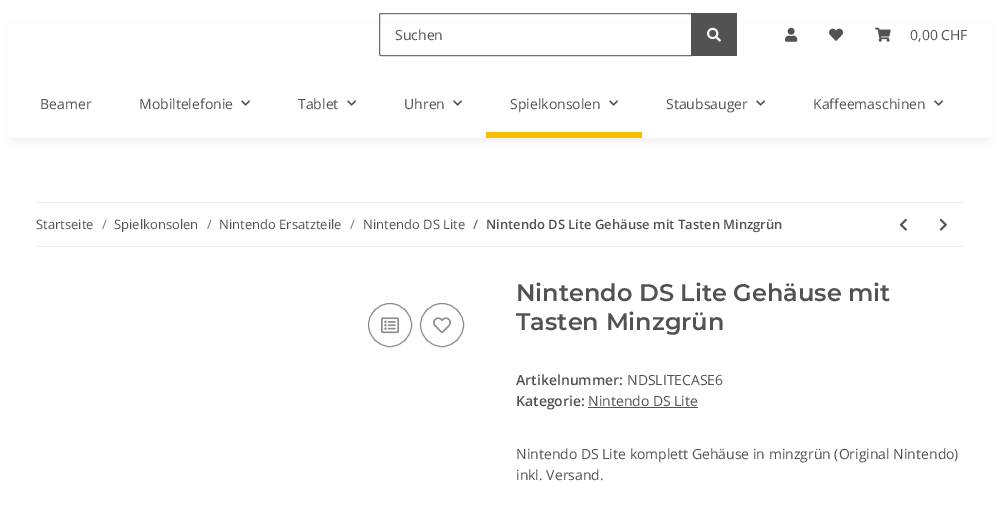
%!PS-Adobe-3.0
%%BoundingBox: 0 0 1000 520
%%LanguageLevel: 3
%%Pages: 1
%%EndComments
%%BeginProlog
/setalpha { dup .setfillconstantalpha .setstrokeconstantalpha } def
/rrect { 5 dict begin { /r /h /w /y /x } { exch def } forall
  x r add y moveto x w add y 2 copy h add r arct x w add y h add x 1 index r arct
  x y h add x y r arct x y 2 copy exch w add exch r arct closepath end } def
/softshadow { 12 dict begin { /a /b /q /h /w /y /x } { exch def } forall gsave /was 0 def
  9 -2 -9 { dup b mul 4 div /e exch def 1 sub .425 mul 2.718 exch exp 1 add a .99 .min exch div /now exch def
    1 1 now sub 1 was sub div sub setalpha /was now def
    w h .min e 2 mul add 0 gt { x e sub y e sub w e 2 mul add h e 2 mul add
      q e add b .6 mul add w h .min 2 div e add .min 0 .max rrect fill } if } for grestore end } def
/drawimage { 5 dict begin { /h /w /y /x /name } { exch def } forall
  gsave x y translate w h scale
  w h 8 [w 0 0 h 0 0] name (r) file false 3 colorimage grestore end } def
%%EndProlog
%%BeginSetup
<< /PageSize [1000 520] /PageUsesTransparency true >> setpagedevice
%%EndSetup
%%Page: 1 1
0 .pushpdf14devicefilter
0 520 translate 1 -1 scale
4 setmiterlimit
1 setgray
0 0 1000 520 rectfill
0 setgray
12 28 976 114 0 4.5 0.06 softshadow
1 setgray
8 24 984 114 rectfill
0.439 setgray
newpath 381 13.5 moveto 691.5 13.5 lineto 691.5 55.5 lineto 381 55.5 lineto 380 55.5 379.5 55 379.5 54 curveto 379.5 15 lineto 379.5 14 380 13.5 381 13.5 curveto closepath stroke
0.322 setgray
691 13 46 43 rectfill
(images/1.raw) 707 27 14 15 drawimage
(images/2.raw) 785 27 13 15 drawimage
(images/3.raw) 829 28 14 13 drawimage
(images/4.raw) 875 27 16 15 drawimage
(images/5.raw) 241 100 9 6 drawimage
(images/5.raw) 347 100 9 6 drawimage
(images/5.raw) 453 100 9 6 drawimage
(images/5.raw) 609 100 9 6 drawimage
0.973 0.749 0 setrgbcolor
486 132 156 6 rectfill
(images/5.raw) 756 100 9 6 drawimage
(images/5.raw) 934 100 9 6 drawimage
0.922 setgray
36 202 928 1 rectfill
36 246 928 1 rectfill
(images/6.raw) 899 218 8 13 drawimage
(images/7.raw) 939 218 8 13 drawimage
0.553 setgray
newpath 390 325 21.5 0 360 arc closepath stroke
(images/8.raw) 381 317 18 17 drawimage
newpath 442 325 21.5 0 360 arc closepath stroke
(images/9.raw) 433 317 18 17 drawimage
0.322 setgray
588 407 110 1 rectfill
/OpenSans-Regular [14 0 0 -14 0 0] selectfont
395 40 moveto (Suchen) show
910 40 moveto (0,00 CHF) show
40 109 moveto (Beamer) show
139 109 moveto (Mobiltelefonie) show
298 109 moveto (Tablet) show
404 109 moveto (Uhren) show
510 109 moveto (Spielkonsolen) show
666 109 moveto (Staubsauger) show
813 109 moveto (Kaffeemaschinen) show
/OpenSans-Regular [13 0 0 -13 0 0] selectfont
36 229 moveto (Startseite) show
0.439 setgray
102 229 moveto (/) show
0.322 setgray
114 229 moveto (Spielkonsolen) show
0.439 setgray
207 229 moveto (/) show
0.322 setgray
219 229 moveto (Nintendo Ersatzteile) show
0.439 setgray
350 229 moveto (/) show
0.322 setgray
363 229 moveto (Nintendo DS Lite) show
/OpenSans-SemiBold [13 0 0 -13 0 0] selectfont
0.439 setgray
473 229 moveto (/) show
0.322 setgray
486 229 moveto (Nintendo DS Lite Gehäuse mit Tasten Minzgrün) show
/Montserrat-SemiBold [24 0 0 -24 0 0] selectfont
516 301 moveto (Nintendo DS Lite Gehäuse mit) show
516 330 moveto (Tasten Minzgrün) show
/OpenSans-SemiBold [14 0 0 -14 0 0] selectfont
516 385 moveto (Artikelnummer:) show
/OpenSans-Regular [14 0 0 -14 0 0] selectfont
627 385 moveto (NDSLITECASE6) show
/OpenSans-SemiBold [14 0 0 -14 0 0] selectfont
516 406 moveto (Kategorie:) show
/OpenSans-Regular [14 0 0 -14 0 0] selectfont
588 406 moveto (Nintendo DS Lite) show
516 459 moveto (Nintendo DS Lite komplett Gehäuse in minzgrün \(Original Nintendo\)) show
516 480 moveto (inkl. Versand.) show
.poppdf14devicefilter showpage
%%EOF
